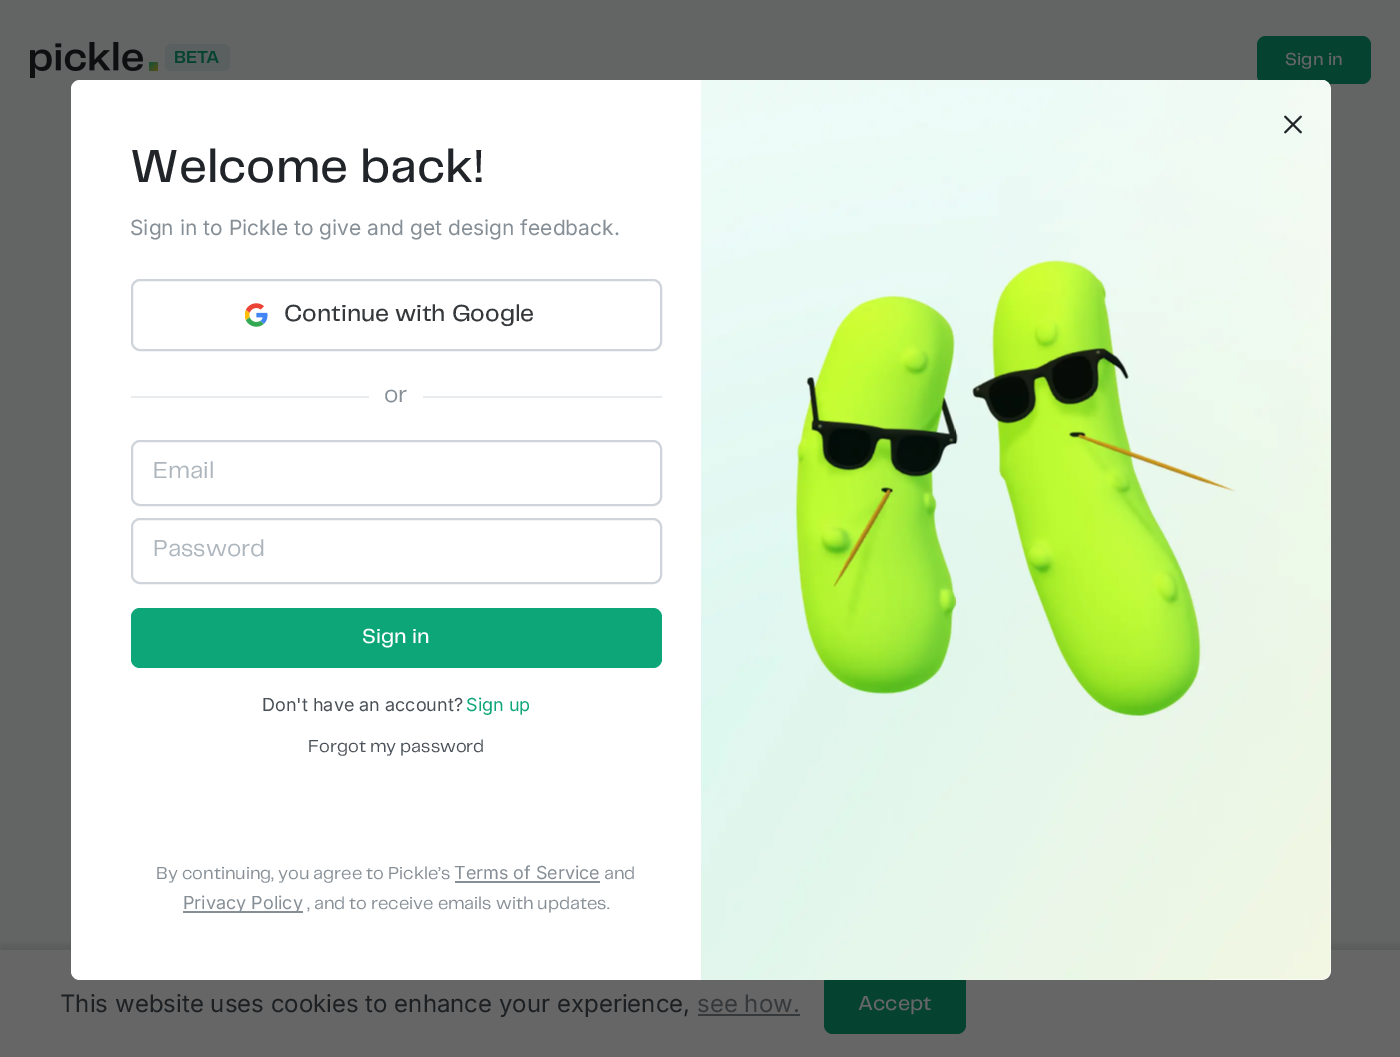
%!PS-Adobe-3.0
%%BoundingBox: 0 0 1400 1057
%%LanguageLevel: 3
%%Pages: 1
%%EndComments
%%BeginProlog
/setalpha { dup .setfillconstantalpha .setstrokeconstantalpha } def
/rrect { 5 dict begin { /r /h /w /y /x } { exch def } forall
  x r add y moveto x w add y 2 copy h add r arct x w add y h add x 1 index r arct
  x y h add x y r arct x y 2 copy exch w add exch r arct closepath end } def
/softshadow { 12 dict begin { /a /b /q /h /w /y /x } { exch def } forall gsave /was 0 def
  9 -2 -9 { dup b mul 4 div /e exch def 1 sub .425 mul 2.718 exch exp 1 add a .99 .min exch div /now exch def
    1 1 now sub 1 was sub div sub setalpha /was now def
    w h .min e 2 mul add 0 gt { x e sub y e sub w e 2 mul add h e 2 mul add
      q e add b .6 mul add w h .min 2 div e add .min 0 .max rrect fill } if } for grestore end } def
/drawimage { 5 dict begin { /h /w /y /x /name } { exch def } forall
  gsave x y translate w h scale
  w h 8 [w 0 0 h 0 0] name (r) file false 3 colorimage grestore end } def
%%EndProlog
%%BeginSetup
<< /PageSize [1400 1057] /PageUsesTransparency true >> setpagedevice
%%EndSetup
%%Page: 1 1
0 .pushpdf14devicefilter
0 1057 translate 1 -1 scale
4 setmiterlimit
0.388 0.392 0.392 setrgbcolor
0 0 1400 1057 rectfill
(images/1.raw) 30 42 200 36 drawimage
0.02 0.259 0.188 setrgbcolor
1257 36 114 48 9 rrect fill
0 setgray
0 945 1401 108 0 4 0.1 softshadow
0.4 setgray
0 950 1400 107 rectfill
0.212 0.224 0.235 setrgbcolor
698 1014 102 2 rectfill
0.02 0.259 0.188 setrgbcolor
824 974 142 60 9 rrect fill
1 setgray
71 80 1260 900 9 rrect fill
(images/4.raw) 701 80 630 900 drawimage
(images/2.raw) 1284 115 18 19 drawimage
0.808 0.831 0.855 setrgbcolor
2 setlinewidth
132 280 529 70 8 rrect stroke
(images/3.raw) 245 303 23 24 drawimage
0.914 0.925 0.937 setrgbcolor
131 396 238 2 rectfill
423 396 239 2 rectfill
0.808 0.831 0.855 setrgbcolor
132 441 529 64 8 rrect stroke
132 519 529 64 8 rrect stroke
0.047 0.651 0.471 setrgbcolor
131 608 531 60 9 rrect fill
0.525 0.557 0.588 setrgbcolor
455 881 145 2 rectfill
183 911 120 2 rectfill
/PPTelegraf-Medium [18 0 0 -18 0 0] selectfont
0.4 setgray
1285 65 moveto (Sign in) show
/Inter-Regular [24 0 0 -24 0 0] selectfont
0.114 0.125 0.137 setrgbcolor
60 1012 moveto (This website uses cookies to enhance your experience,) show
0.212 0.224 0.235 setrgbcolor
697 1012 moveto (see how.) show
/PPTelegraf-Medium [21 0 0 -21 0 0] selectfont
0.4 setgray
858 1010 moveto (Accept) show
/PPTelegraf-Medium [48 0 0 -48 0 0] selectfont
0.129 0.145 0.161 setrgbcolor
130 182 moveto (Welcome back!) show
/Inter-Regular [21 0 0 -21 0 0] selectfont
0.525 0.557 0.588 setrgbcolor
130 235 moveto (Sign in to Pickle to give and get design feedback.) show
/PPTelegraf-Medium [24 0 0 -24 0 0] selectfont
0.212 0.224 0.235 setrgbcolor
284 321 moveto (Continue with Google) show
/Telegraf-Regular [24 0 0 -24 0 0] selectfont
0.525 0.557 0.588 setrgbcolor
384 402 moveto (or) show
0.678 0.71 0.741 setrgbcolor
153 478 moveto (Email) show
153 556 moveto (Password) show
/PPTelegraf-Medium [21 0 0 -21 0 0] selectfont
1 setgray
362 643 moveto (Sign in) show
/Inter-Regular [18 0 0 -18 0 0] selectfont
0.286 0.314 0.341 setrgbcolor
262 711 moveto (Don't have an account?) show
0.047 0.651 0.471 setrgbcolor
466 711 moveto (Sign up) show
/Telegraf-Regular [18 0 0 -18 0 0] selectfont
0.286 0.314 0.341 setrgbcolor
308 752 moveto (Forgot my password) show
0.525 0.557 0.588 setrgbcolor
156 879 moveto (By continuing, you agree to Pickle’s) show
/Inter-Regular [18 0 0 -18 0 0] selectfont
454 879 moveto (Terms of Service) show
/Telegraf-Regular [18 0 0 -18 0 0] selectfont
604 879 moveto (and) show
/Inter-Regular [18 0 0 -18 0 0] selectfont
183 909 moveto (Privacy Policy) show
/Telegraf-Regular [18 0 0 -18 0 0] selectfont
307 909 moveto (, and to receive emails with updates.) show
.poppdf14devicefilter showpage
%%EOF
